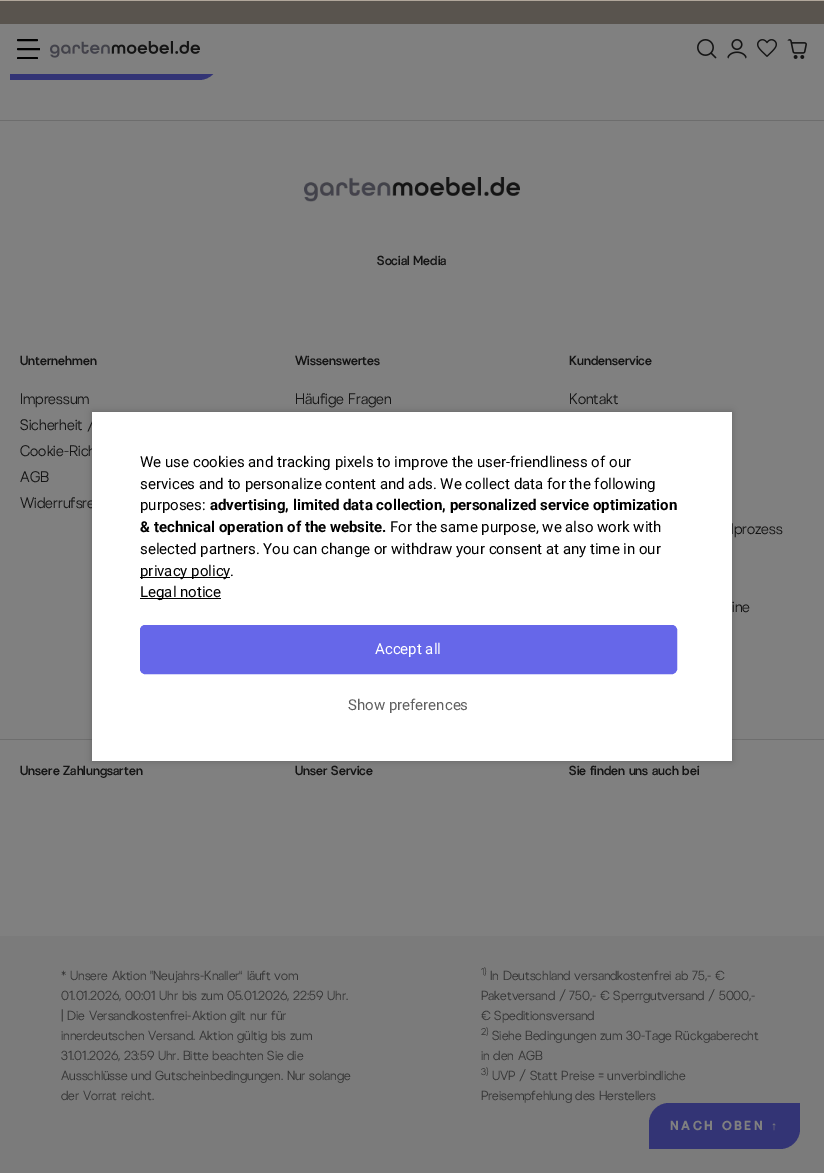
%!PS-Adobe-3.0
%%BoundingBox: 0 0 824 1173
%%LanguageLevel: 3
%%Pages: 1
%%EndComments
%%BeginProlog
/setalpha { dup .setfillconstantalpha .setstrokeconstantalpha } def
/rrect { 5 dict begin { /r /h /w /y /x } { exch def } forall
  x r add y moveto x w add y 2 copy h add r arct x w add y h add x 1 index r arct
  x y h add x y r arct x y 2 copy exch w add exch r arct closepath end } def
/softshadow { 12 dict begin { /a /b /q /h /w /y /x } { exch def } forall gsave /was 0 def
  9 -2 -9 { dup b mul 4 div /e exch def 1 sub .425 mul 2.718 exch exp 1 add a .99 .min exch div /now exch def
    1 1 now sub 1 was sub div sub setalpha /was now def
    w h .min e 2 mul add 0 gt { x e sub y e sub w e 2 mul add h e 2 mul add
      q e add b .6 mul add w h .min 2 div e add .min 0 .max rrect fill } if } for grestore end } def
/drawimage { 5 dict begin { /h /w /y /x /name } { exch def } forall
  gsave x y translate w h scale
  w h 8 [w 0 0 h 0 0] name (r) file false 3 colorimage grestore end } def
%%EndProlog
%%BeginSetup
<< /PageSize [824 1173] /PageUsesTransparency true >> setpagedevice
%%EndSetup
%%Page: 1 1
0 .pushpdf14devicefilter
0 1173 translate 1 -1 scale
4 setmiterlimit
0.502 setgray
0 0 824 1173 rectfill
0.694 0.655 0.608 setrgbcolor
0 0 824 1 rectfill
0.349 0.329 0.306 setrgbcolor
0 1 824 23 rectfill
0.2 0.204 0.459 setrgbcolor
newpath 30 34 moveto 219 34 lineto 219 60 lineto 219 71 210 80 199 80 curveto 10 80 lineto 10 54 lineto 10 43 19 34 30 34 curveto closepath fill
0.502 setgray
10 34 209 40 rectfill
gsave
17 39 23 20 3 rrect clip newpath
0 setgray
2 setlinewidth
1 setlinecap
newpath 18 58 moveto 37 58 lineto 18 49 moveto 41 49 lineto 18 40 moveto 37 40 lineto stroke
grestore
(images/1.raw) 50 41 150 17 drawimage
(images/2.raw) 697 39 20 20 drawimage
(images/3.raw) 727 39 20 20 drawimage
(images/4.raw) 757 39 20 18 drawimage
(images/5.raw) 787 39 20 20 drawimage
0.427 setgray
0 120 824 1 rectfill
(images/6.raw) 304 177 216 25 drawimage
0.431 setgray
0 739 824 1 rectfill
0.482 setgray
0 936 824 237 rectfill
0 setgray
92 412 640 349 0 3.5 0.2 softshadow
0.2 0.204 0.459 setrgbcolor
newpath 669 1103 moveto 800 1103 lineto 800 1129 lineto 800 1140 791 1149 780 1149 curveto 649 1149 lineto 649 1123 lineto 649 1112 658 1103 669 1103 curveto closepath fill
/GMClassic-Medium [12 0 0 -12 0 0] selectfont
0.078 setgray
377 265 moveto (Social Media) show
20 365 moveto (Unternehmen) show
/GMClassic-Regular [14 0 0 -14 0 0] selectfont
20 404 moveto (Impressum) show
20 430 moveto (Sicherheit /) show
20 456 moveto (Cookie-Rich) show
20 482 moveto (AGB) show
20 508 moveto (Widerrufsre) show
/GMClassic-Medium [12 0 0 -12 0 0] selectfont
295 365 moveto (Wissenswertes) show
/GMClassic-Regular [14 0 0 -14 0 0] selectfont
295 404 moveto (Häufige Fragen) show
/GMClassic-Medium [12 0 0 -12 0 0] selectfont
569 365 moveto (Kundenservice) show
/GMClassic-Regular [14 0 0 -14 0 0] selectfont
569 404 moveto (Kontakt) show
731 534 moveto (lprozess) show
732 612 moveto (ine) show
/GMClassic-Medium [12 0 0 -12 0 0] selectfont
20 775 moveto (Unsere Zahlungsarten) show
295 775 moveto (Unser Service) show
569 775 moveto (Sie finden uns auch bei) show
/GMClassic-Regular [12 0 0 -12 0 0] selectfont
0.2 setgray
61 980 moveto (* Unsere Aktion „Neujahrs-Knaller“ läuft vom) show
61 1000 moveto (01.01.2026, 00:01 Uhr bis zum 05.01.2026, 22:59 Uhr.) show
61 1020 moveto (| Die Versandkostenfrei-Aktion gilt nur für) show
61 1040 moveto (innerdeutschen Versand. Aktion gültig bis zum) show
61 1060 moveto (31.01.2026, 23:59 Uhr. Bitte beachten Sie die) show
61 1080 moveto (Ausschlüsse und Gutscheinbedingungen. Nur solange) show
61 1100 moveto (der Vorrat reicht.) show
/GMClassic-Regular [9 0 0 -9 0 0] selectfont
481 975 moveto (1\)) show
/GMClassic-Regular [12 0 0 -12 0 0] selectfont
490 980 moveto (In Deutschland versandkostenfrei ab 75,- €) show
481 1000 moveto (Paketversand / 750,- € Sperrgutversand / 5000,-) show
481 1020 moveto (€ Speditionsversand) show
/GMClassic-Regular [9 0 0 -9 0 0] selectfont
481 1035 moveto (2\)) show
/GMClassic-Regular [12 0 0 -12 0 0] selectfont
492 1040 moveto (Siehe Bedingungen zum 30-Tage Rückgaberecht) show
481 1060 moveto (in den AGB) show
/GMClassic-Regular [9 0 0 -9 0 0] selectfont
481 1075 moveto (3\)) show
/GMClassic-Regular [12 0 0 -12 0 0] selectfont
492 1080 moveto (UVP / Statt Preise = unverbindliche) show
481 1100 moveto (Preisempfehlung des Herstellers) show
1 setgray
92 412 640 349 rectfill
/Roboto-Regular [15 0 0 -15 0 0] selectfont
0 setgray
140 467 moveto (We use cookies and tracking pixels to improve the user-friendliness of our) show
140 489 moveto (services and to personalize content and ads. We collect data for the following) show
140 510 moveto (purposes:) show
/Roboto-Bold [15 0 0 -15 0 0] selectfont
210 510 moveto (advertising, limited data collection, personalized service optimization) show
140 532 moveto (& technical operation of the website.) show
/Roboto-Regular [15 0 0 -15 0 0] selectfont
390 532 moveto (For the same purpose, we also work with) show
140 554 moveto (selected partners. You can change or withdraw your consent at any time in our) show
140 577 90 1 rectfill
140 576 moveto (privacy policy.) show
140 598 81 1 rectfill
140 597 moveto (Legal notice) show
0.4 0.404 0.914 setrgbcolor
140.5 625.5 536 48 4.5 rrect gsave fill grestore
stroke
1 setgray
375 654 moveto (Accept all) show
0.376 setgray
348 710 moveto (Show preferences) show
/GMClassic-Bold [12 0 0 -12 0 0] selectfont
0.502 setgray
670 1130 moveto 2.5 0 (NACH OBEN) ashow
/LiberationSerif-Bold [12 0 0 -12 0 0] selectfont
771 1130 moveto 2.5 0 (↑) ashow
.poppdf14devicefilter showpage
%%EOF
